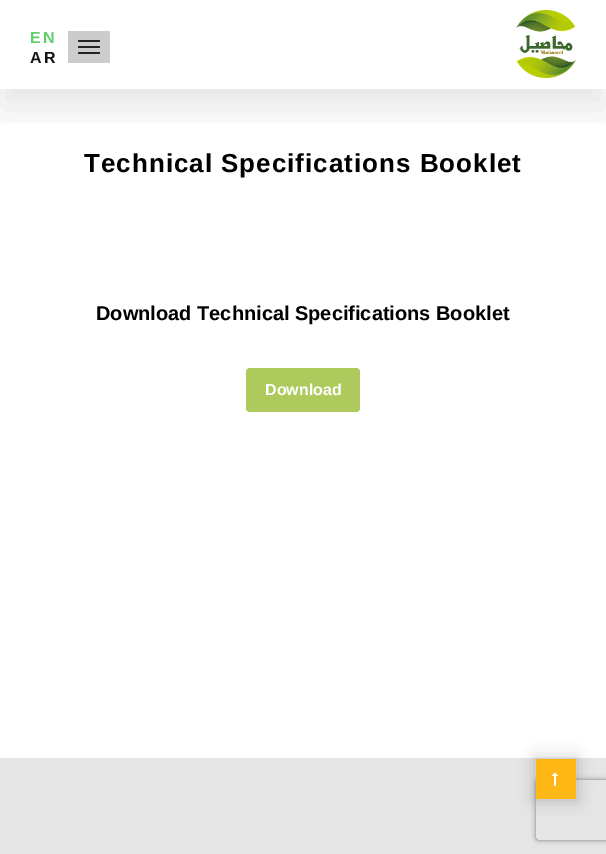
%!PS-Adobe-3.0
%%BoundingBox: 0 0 606 854
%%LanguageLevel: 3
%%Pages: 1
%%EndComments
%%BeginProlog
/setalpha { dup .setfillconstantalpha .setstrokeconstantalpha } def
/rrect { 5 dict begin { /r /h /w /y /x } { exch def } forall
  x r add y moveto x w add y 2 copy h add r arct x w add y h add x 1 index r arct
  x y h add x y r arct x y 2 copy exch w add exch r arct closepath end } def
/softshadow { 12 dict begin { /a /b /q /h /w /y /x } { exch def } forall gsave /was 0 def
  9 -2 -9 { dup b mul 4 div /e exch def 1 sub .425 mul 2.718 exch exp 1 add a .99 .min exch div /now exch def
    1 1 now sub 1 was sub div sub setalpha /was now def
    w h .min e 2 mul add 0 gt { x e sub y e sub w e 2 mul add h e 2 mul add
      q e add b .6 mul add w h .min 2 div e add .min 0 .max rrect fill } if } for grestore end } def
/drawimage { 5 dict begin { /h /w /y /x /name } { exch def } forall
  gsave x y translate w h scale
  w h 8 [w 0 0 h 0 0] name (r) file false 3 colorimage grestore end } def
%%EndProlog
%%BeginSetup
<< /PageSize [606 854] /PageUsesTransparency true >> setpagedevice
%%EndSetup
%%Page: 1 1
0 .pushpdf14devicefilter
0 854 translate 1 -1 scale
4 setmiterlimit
1 setgray
0 0 606 854 rectfill
gsave
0 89 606 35 rectclip
0 setgray
0 19 606 89 0 19 0.1 softshadow
grestore
0.8 setgray
68 31 42 32 rectfill
0.133 setgray
78 40 22 2 1 rrect fill
78 46 22 2 1 rrect fill
78 52 22 2 1 rrect fill
(images/1.raw) 516 10 60 68 drawimage
0.682 0.788 0.361 setrgbcolor
246 368 114 44 4 rrect fill
0.898 setgray
0 758 606 96 rectfill
0 setgray
535 758 42 42 0 7.5 0.2 softshadow
gsave
newpath 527 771 moveto 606 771 lineto 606 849 lineto 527 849 lineto closepath 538 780 moveto 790 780 lineto 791 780 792 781 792 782 curveto 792 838 lineto 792 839 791 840 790 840 curveto 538 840 lineto 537 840 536 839 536 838 curveto 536 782 lineto 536 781 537 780 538 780 curveto closepath eoclip newpath
0.502 setgray
536 780 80 60 2 2.5 1 softshadow
grestore
1 0.718 0.086 setrgbcolor
536 759 40 40 rectfill
(images/2.raw) 552 772 6 14 drawimage
/LiberationSans-Bold [16 0 0 -16 0 0] selectfont
0.38 0.808 0.439 setrgbcolor
30 43 moveto 2 0 (EN) ashow
0.082 setgray
30 63 moveto 2 0 (AR) ashow
/LiberationSans-Bold [26 0 0 -26 0 0] selectfont
0 setgray
84 172 moveto 1 0 (Technical Specifications Booklet) ashow
/LiberationSans-Bold [20 0 0 -20 0 0] selectfont
96 320 moveto (Download Technical Specifications Booklet) show
/LiberationSans-Bold [16 0 0 -16 0 0] selectfont
1 setgray
265 395 moveto (Download) show
.poppdf14devicefilter showpage
%%EOF
